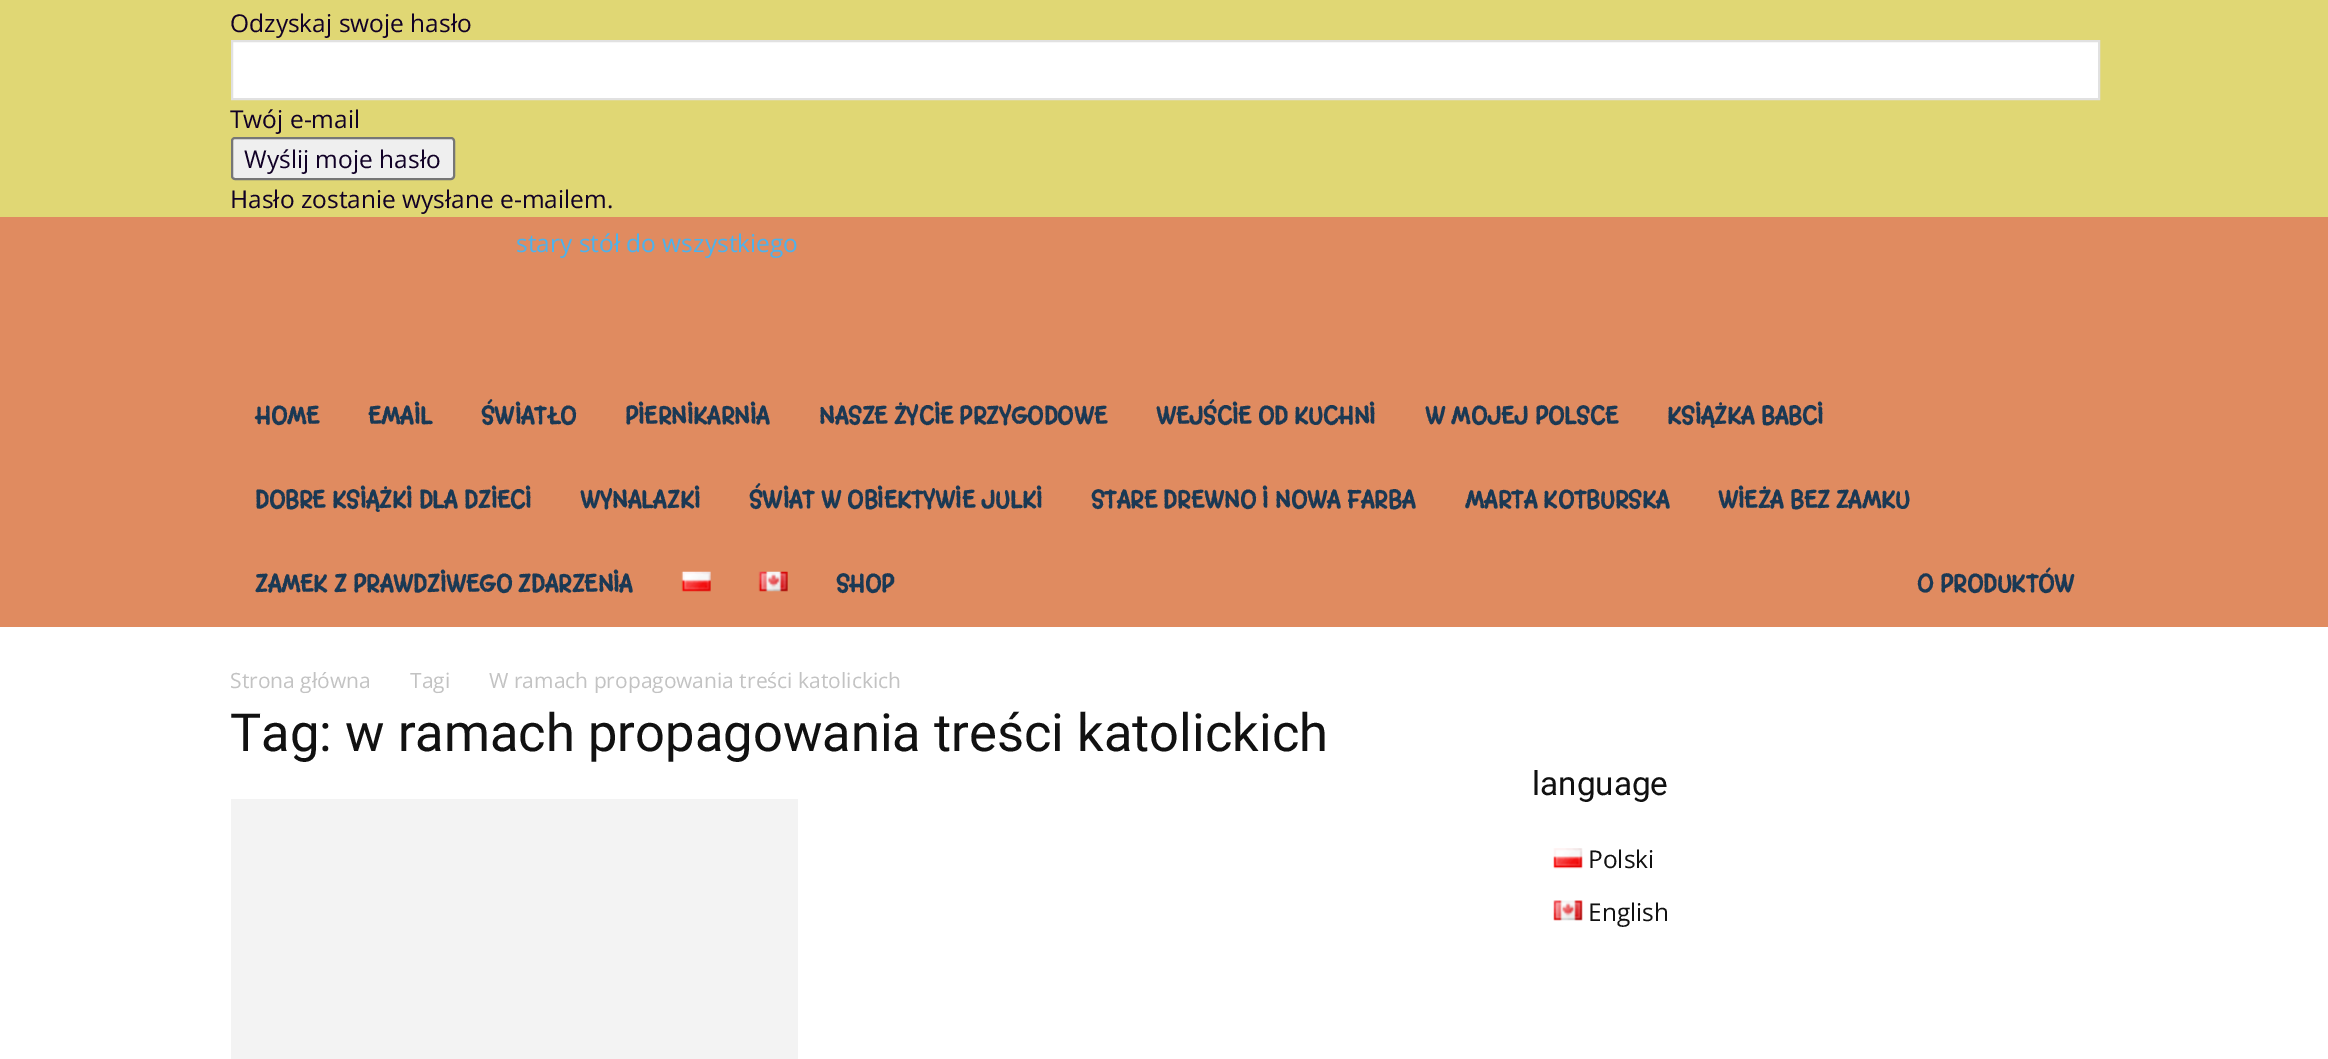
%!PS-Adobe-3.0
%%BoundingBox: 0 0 2328 1059
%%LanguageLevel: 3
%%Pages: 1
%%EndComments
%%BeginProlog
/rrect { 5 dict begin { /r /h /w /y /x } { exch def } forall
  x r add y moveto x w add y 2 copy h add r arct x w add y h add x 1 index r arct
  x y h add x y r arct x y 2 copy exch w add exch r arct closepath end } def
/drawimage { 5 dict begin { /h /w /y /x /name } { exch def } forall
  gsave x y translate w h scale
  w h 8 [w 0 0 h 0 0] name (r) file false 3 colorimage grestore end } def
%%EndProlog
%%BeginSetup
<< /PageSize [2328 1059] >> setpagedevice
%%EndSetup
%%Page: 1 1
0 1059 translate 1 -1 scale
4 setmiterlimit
1 setgray
0 0 2328 1059 rectfill
0.878 0.843 0.455 setrgbcolor
0 0 2328 217 rectfill
1 setgray
newpath 232 41 moveto 2099 41 lineto 2099 99 lineto 232 99 lineto closepath gsave fill grestore
0.882 setgray
2 setlinewidth
stroke
0.937 setgray
232 138 222 41 3 rrect gsave fill grestore
0.463 setgray
stroke
0.878 0.545 0.376 setrgbcolor
0 217 2328 410 rectfill
(images/1.raw) 681 571 30 21 drawimage
(images/2.raw) 758 571 30 21 drawimage
0.953 setgray
231 799 567 260 rectfill
(images/3.raw) 1553 848 30 21 drawimage
(images/4.raw) 1553 900 30 21 drawimage
/OpenSans-Regular [24.5 0 0 -24.5 0 0] selectfont
0.067 0 0.149 setrgbcolor
230 32 moveto (Odzyskaj swoje hasło) show
230 128 moveto (Twój e-mail) show
244 168 moveto (Wyślij moje hasło) show
230 208 moveto (Hasło zostanie wysłane e-mailem.) show
0.302 0.698 0.925 setrgbcolor
516 252 moveto (stary stół do wszystkiego) show
/Margarine-Bold [24.5 0 0 -24.5 0 0] selectfont
0.106 0.224 0.329 setrgbcolor
255 424 moveto (HOME) show
368 424 moveto (EMAIL) show
481 424 moveto (ŚWIATŁO) show
625 424 moveto (PIERNIKARNIA) show
819 424 moveto (NASZE ŻYCIE PRZYGODOWE) show
1156 424 moveto (WEJŚCIE OD KUCHNI) show
1425 424 moveto (W MOJEJ POLSCE) show
1667 424 moveto (KSIĄŻKA BABCI) show
255 508 moveto (DOBRE KSIĄŻKI DLA DZIECI) show
580 508 moveto (WYNALAZKI) show
749 508 moveto (ŚWIAT W OBIEKTYWIE JULKI) show
1091 508 moveto (STARE DREWNO I NOWA FARBA) show
1465 508 moveto (MARTA KOTBURSKA) show
1718 508 moveto (WIEŻA BEZ ZAMKU) show
255 592 moveto (ZAMEK Z PRAWDZIWEGO ZDARZENIA) show
836 592 moveto (SHOP) show
1917 592 moveto (0 PRODUKTÓW) show
/OpenSans-Regular [21 0 0 -21 0 0] selectfont
0.765 setgray
230 688 moveto (Strona główna) show
410 688 moveto (Tagi) show
489 688 moveto (W ramach propagowania treści katolickich) show
/Roboto-Regular [52.5 0 0 -52.5 0 0] selectfont
0.067 setgray
230 751 moveto (Tag: w ramach propagowania treści katolickich) show
/Roboto-Regular [33.25 0 0 -33.25 0 0] selectfont
1532 795 moveto (language) show
/OpenSans-Regular [24.5 0 0 -24.5 0 0] selectfont
1588 868 moveto (Polski) show
1588 921 moveto (English) show
showpage
%%EOF
